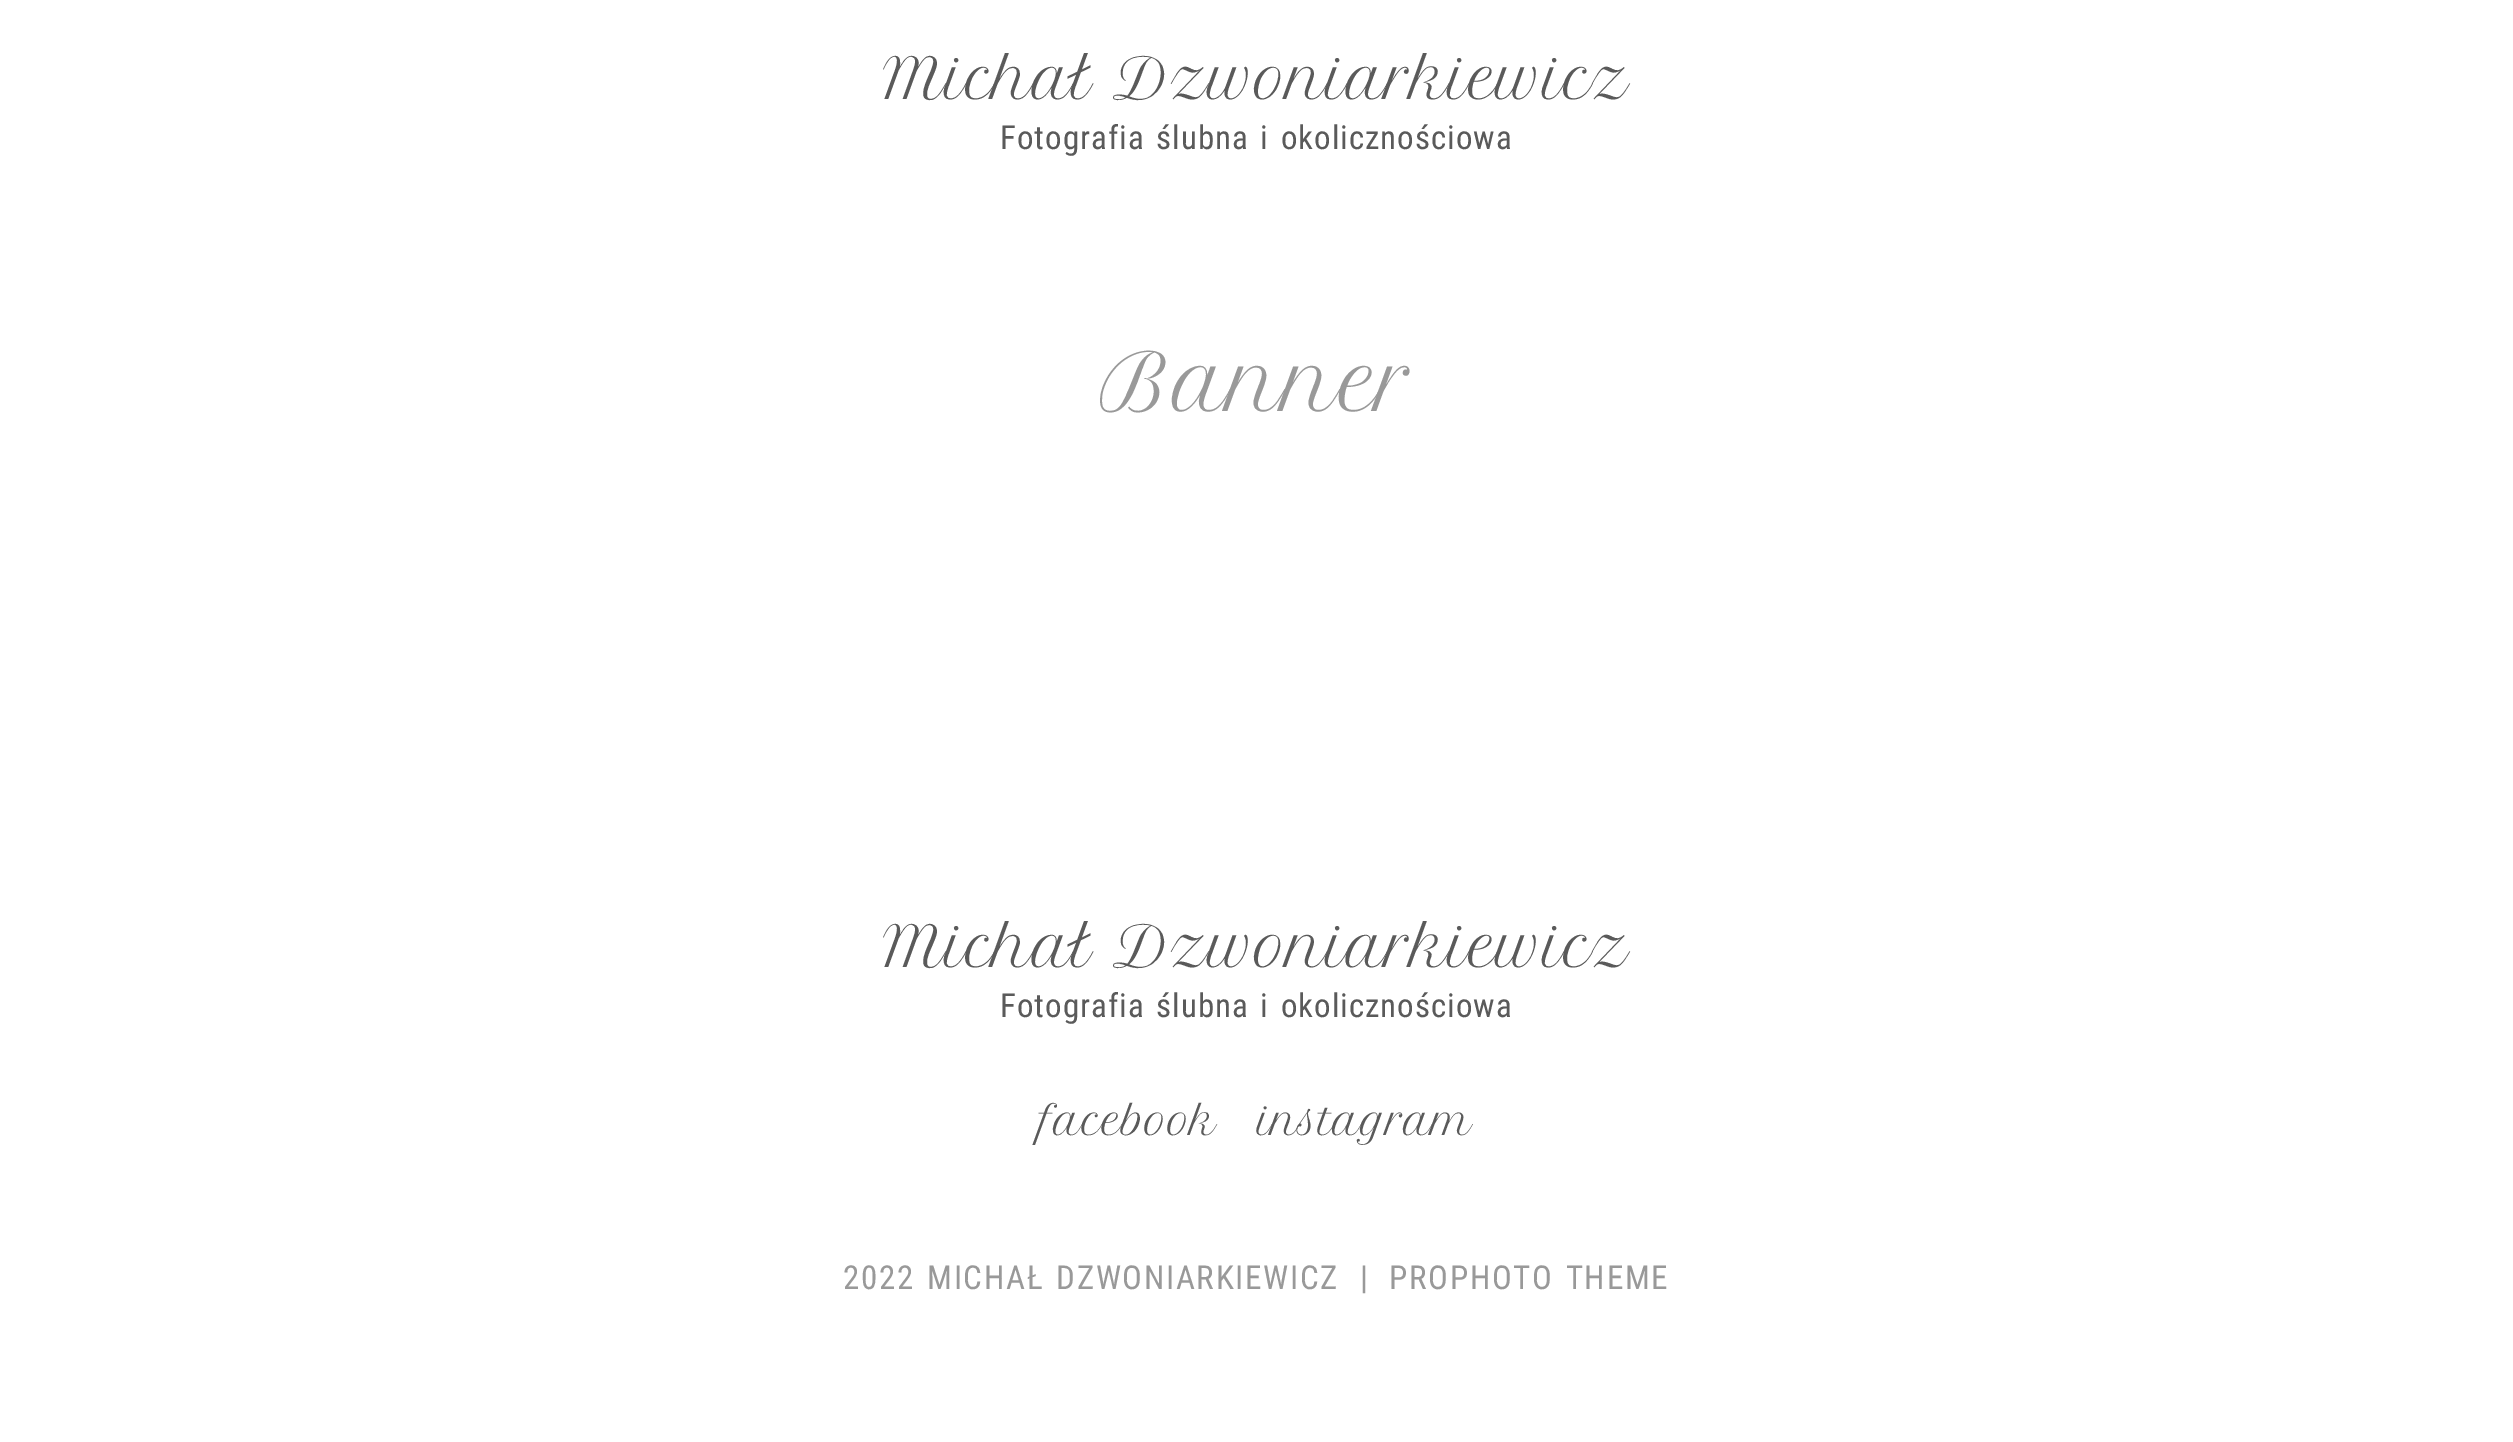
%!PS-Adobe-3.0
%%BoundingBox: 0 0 2513 1442
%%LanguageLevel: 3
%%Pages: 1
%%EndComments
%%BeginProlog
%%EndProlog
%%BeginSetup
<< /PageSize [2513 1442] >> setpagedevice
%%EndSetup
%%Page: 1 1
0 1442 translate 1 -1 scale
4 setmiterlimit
1 setgray
0 0 2513 1442 rectfill
/PetitFormalScript-Regular [55 0 0 -55 0 0] selectfont
0.353 setgray
883 99 moveto (Michał Dzwoniarkiewicz) show
/RobotoCondensed-Regular [33 0 0 -33 0 0] selectfont
1000 149 moveto 3 0 32 1 0 (Fotografia ślubna i okolicznościowa) awidthshow
/PetitFormalScript-Regular [77 0 0 -77 0 0] selectfont
0.6 setgray
1100 411 moveto (Banner) show
/PetitFormalScript-Regular [55 0 0 -55 0 0] selectfont
0.353 setgray
883 967 moveto (Michał Dzwoniarkiewicz) show
/RobotoCondensed-Regular [33 0 0 -33 0 0] selectfont
1000 1017 moveto 3 0 32 1 0 (Fotografia ślubna i okolicznościowa) awidthshow
/PetitFormalScript-Regular [38.5 0 0 -38.5 0 0] selectfont
1040 1135 moveto (facebook) show
1258 1135 moveto (instagram) show
/RobotoCondensed-Regular [33 0 0 -33 0 0] selectfont
0.6 setgray
843 1289 moveto 3 0 32 1.65 0 (2022 MICHAŁ DZWONIARKIEWICZ) awidthshow
1360 1289 moveto 1.65 0 (|) ashow
1389 1289 moveto 3 0 32 1.65 0 (PROPHOTO THEME) awidthshow
showpage
%%EOF
